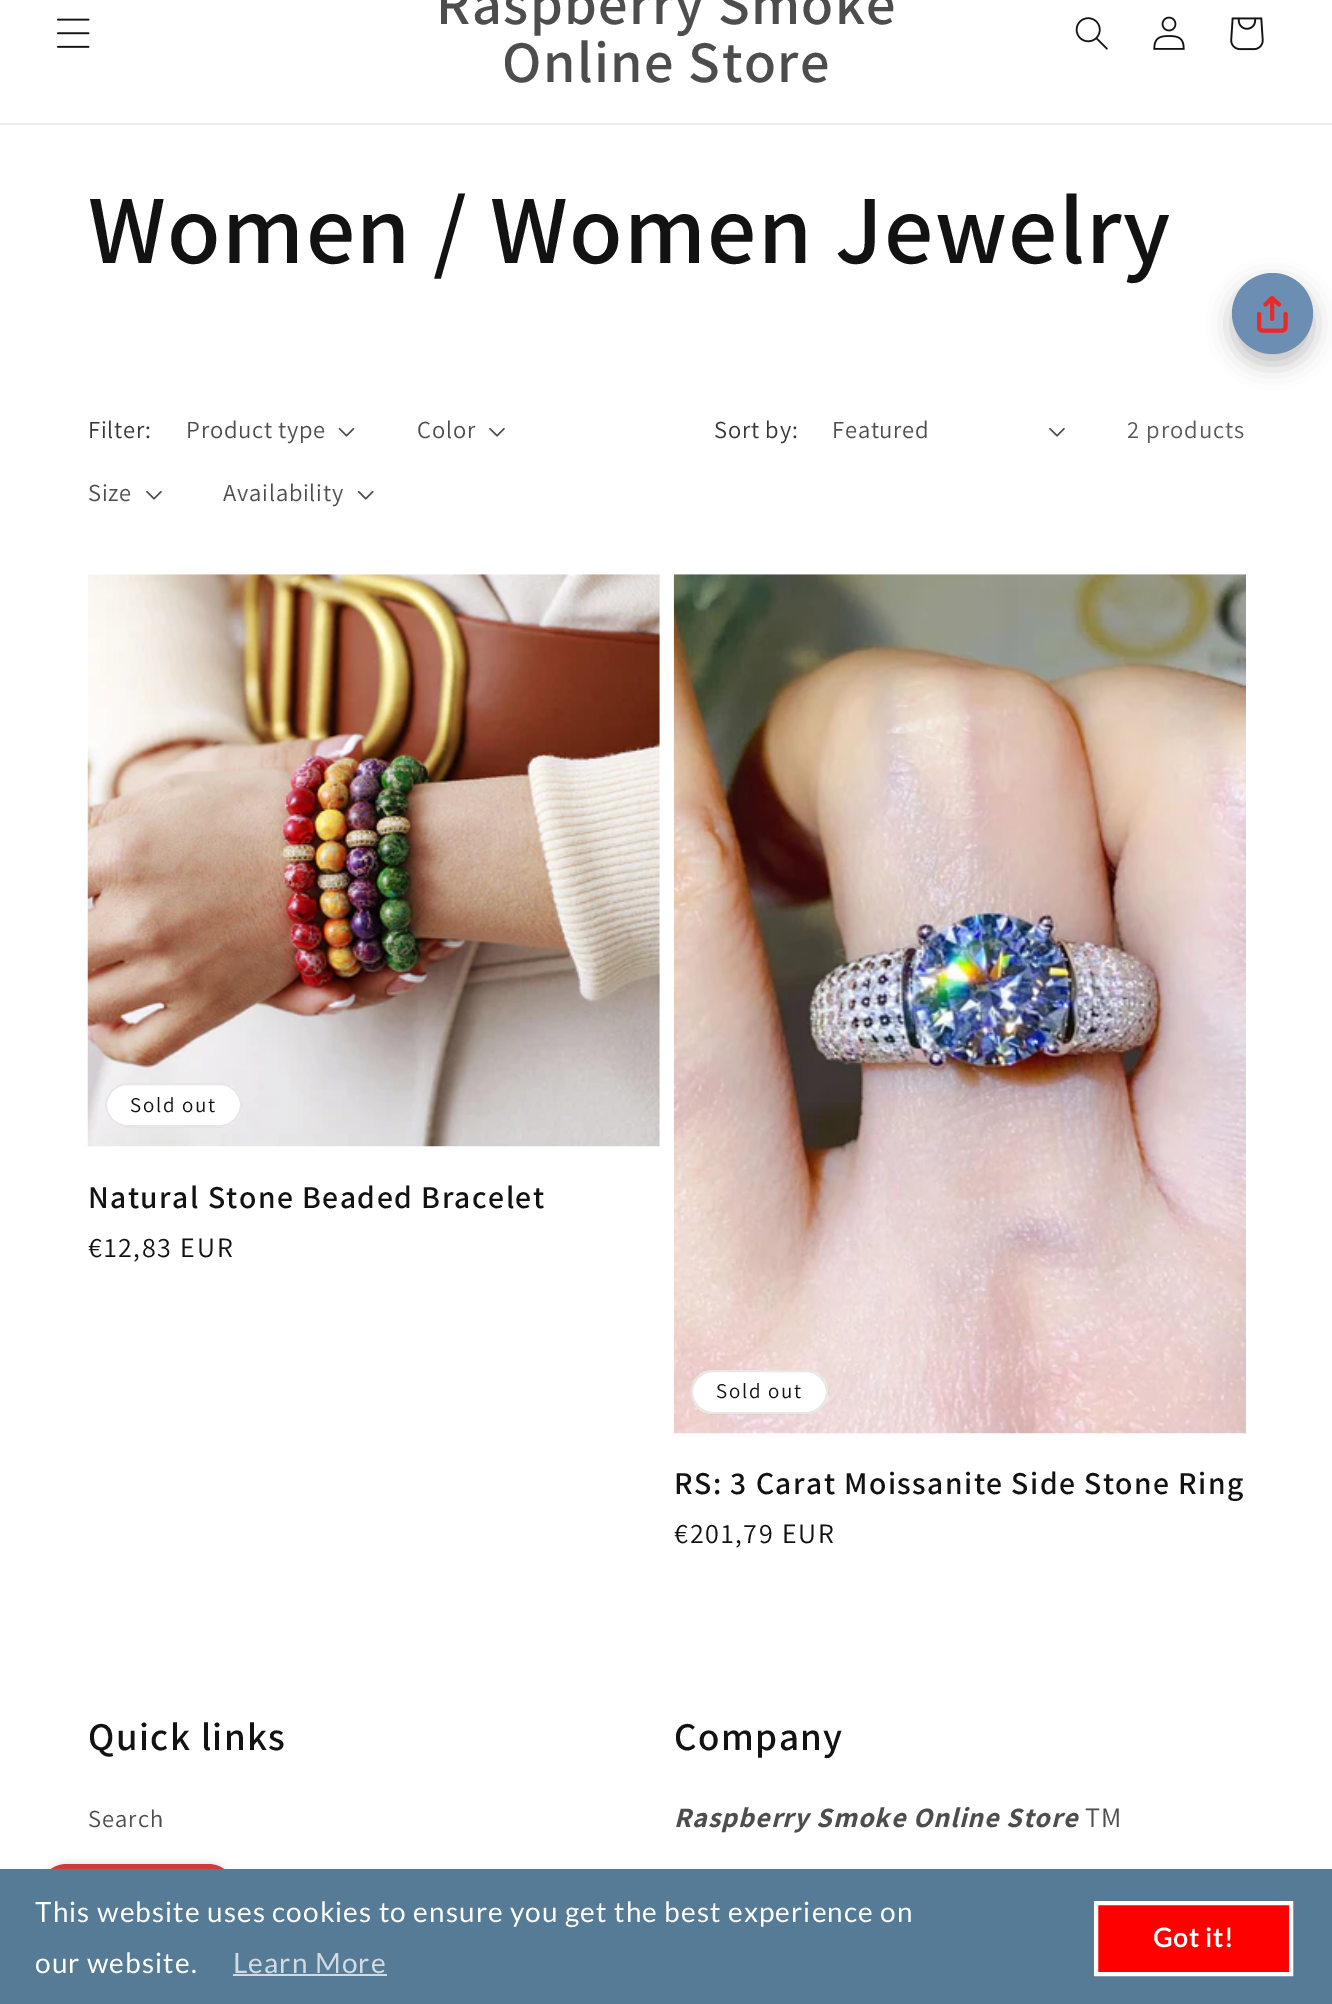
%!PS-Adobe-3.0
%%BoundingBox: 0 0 1332 2004
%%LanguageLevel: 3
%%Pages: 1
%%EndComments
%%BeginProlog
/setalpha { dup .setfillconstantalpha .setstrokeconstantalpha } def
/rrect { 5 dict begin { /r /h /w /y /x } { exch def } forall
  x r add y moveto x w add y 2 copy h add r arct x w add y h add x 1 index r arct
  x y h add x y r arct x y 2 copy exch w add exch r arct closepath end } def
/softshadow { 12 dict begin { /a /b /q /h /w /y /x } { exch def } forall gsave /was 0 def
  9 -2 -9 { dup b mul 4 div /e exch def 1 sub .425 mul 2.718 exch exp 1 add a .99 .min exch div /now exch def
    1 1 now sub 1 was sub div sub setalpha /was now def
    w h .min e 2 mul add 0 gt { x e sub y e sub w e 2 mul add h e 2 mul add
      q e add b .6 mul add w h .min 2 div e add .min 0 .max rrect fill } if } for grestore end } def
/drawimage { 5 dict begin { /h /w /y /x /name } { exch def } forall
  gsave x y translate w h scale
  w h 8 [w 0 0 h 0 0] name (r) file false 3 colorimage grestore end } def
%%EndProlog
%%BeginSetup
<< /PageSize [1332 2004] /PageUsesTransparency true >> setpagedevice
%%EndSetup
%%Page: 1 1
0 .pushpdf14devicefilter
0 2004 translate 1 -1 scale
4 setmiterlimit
1 setgray
0 0 1332 2004 rectfill
0.925 setgray
0 123 1332 2 rectfill
(images/1.raw) 57 18 33 30 drawimage
(images/2.raw) 1075 17 33 33 drawimage
(images/3.raw) 1153 16 32 34 drawimage
(images/4.raw) 1230 17 34 34 drawimage
(images/5.raw) 338 427 17 10 drawimage
(images/6.raw) 489 428 16 9 drawimage
(images/6.raw) 146 491 16 9 drawimage
(images/7.raw) 357 490 17 10 drawimage
(images/6.raw) 1049 428 16 9 drawimage
(images/8.raw) 87 574 573 573 drawimage
1 setgray
105 1083 137 44 22 rrect fill
0.1 setalpha
0.071 setgray
2 setlinewidth
106 1084 135 42 21 rrect stroke
1 setalpha
(images/9.raw) 673 574 573 860 drawimage
1 setgray
691 1370 137 44 22 rrect fill
0.1 setalpha
0.071 setgray
692 1371 135 42 21 rrect stroke
1 setalpha
0 setgray
1232 284 81 80 40 12 0.25 softshadow
0.424 0.557 0.702 setrgbcolor
newpath 1272.5 313.5 40.5 0 360 arc closepath fill
0.91 0.165 0.165 setrgbcolor
4 setlinewidth
1 setlinecap
1 setlinejoin
newpath 1259 314 moveto 1259 327 lineto 1259 329 1260.5 330.5 1262 330.5 curveto 1282.5 330.5 lineto 1284 330.5 1285.5 329 1285.5 327 curveto 1285.5 314 lineto 1279 304.5 moveto 1272 298 lineto 1265.5 304.5 lineto 1272 298 moveto 1272 319 lineto stroke
0 setgray
39 1864 197 105 28 4.5 0.15 softshadow
0.812 0.231 0.231 setrgbcolor
39 1864 197 105 28 rrect fill
0.333 0.482 0.592 setrgbcolor
0 1869 1332 135 rectfill
0.827 0.859 0.882 setrgbcolor
233 1974 154 2 rectfill
1 0 0 setrgbcolor
newpath 1096 1903 moveto 1291 1903 lineto 1291 1974 lineto 1096 1974 lineto closepath gsave fill grestore
1 setgray
0 setlinecap
0 setlinejoin
stroke
/Assistant-SemiBold [58.75 0 0 -58.75 0 0] selectfont
0.302 setgray
436 24 moveto 1.45 0 (Raspberry Smoke) ashow
502 82 moveto 1.45 0 (Online Store) ashow
/Assistant-SemiBold [98 0 0 -98 0 0] selectfont
0.071 setgray
88 263 moveto 1.45 0 (Women / Women Jewelry) ashow
/Assistant-Regular [24.5 0 0 -24.5 0 0] selectfont
0.212 setgray
88 438 moveto 0.75 0 (Filter:) ashow
0.302 setgray
186 438 moveto 0.75 0 (Product type) ashow
417 438 moveto 0.75 0 (Color) ashow
88 501 moveto 0.75 0 (Size) ashow
223 501 moveto 0.75 0 (Availability) ashow
0.212 setgray
714 438 moveto 0.75 0 (Sort by:) ashow
0.302 setgray
832 438 moveto 0.75 0 (Featured) ashow
0.349 setgray
1127 438 moveto 1.05 0 (2 products) ashow
/Assistant-Regular [21 0 0 -21 0 0] selectfont
0.071 setgray
130 1112 moveto 1.75 0 (Sold out) ashow
/Assistant-SemiBold [31.8 0 0 -31.8 0 0] selectfont
88 1208 moveto 1.45 0 (Natural Stone Beaded Bracelet) ashow
/Assistant-Regular [28 0 0 -28 0 0] selectfont
88 1257 moveto 1.75 0 (€12,83 EUR) ashow
/Assistant-Regular [21 0 0 -21 0 0] selectfont
716 1398 moveto 1.75 0 (Sold out) ashow
/Assistant-SemiBold [31.8 0 0 -31.8 0 0] selectfont
674 1494 moveto 1.45 0 (RS: 3 Carat Moissanite Side Stone Ring) ashow
/Assistant-Regular [28 0 0 -28 0 0] selectfont
674 1543 moveto 1.75 0 (€201,79 EUR) ashow
/Assistant-SemiBold [39.25 0 0 -39.25 0 0] selectfont
88 1750 moveto 1.45 0 (Quick links) ashow
/Assistant-Regular [24.5 0 0 -24.5 0 0] selectfont
0.302 setgray
88 1827 moveto 1.05 0 (Search) ashow
/Assistant-SemiBold [39.25 0 0 -39.25 0 0] selectfont
0.071 setgray
674 1750 moveto 1.45 0 (Company) ashow
/Assistant-BoldItalic [28 0 0 -28 0 0] selectfont
0.302 setgray
674 1827 moveto 1.05 0 (Raspberry Smoke Online Store) ashow
/Assistant-Regular [28 0 0 -28 0 0] selectfont
1085 1827 moveto 1.05 0 (TM) ashow
/Lato-Regular [28 0 0 -28 0 0] selectfont
1 setgray
35 1922 moveto 1.05 0 (This website uses cookies to ensure you get the best experience on) ashow
35 1973 moveto 1.05 0 (our website.) ashow
0.827 0.859 0.882 setrgbcolor
233 1973 moveto 1.05 0 (Learn More) ashow
/Lato-Bold [26 0 0 -26 0 0] selectfont
1 setgray
1153 1947 moveto 1.05 0 (Got it!) ashow
.poppdf14devicefilter showpage
%%EOF
